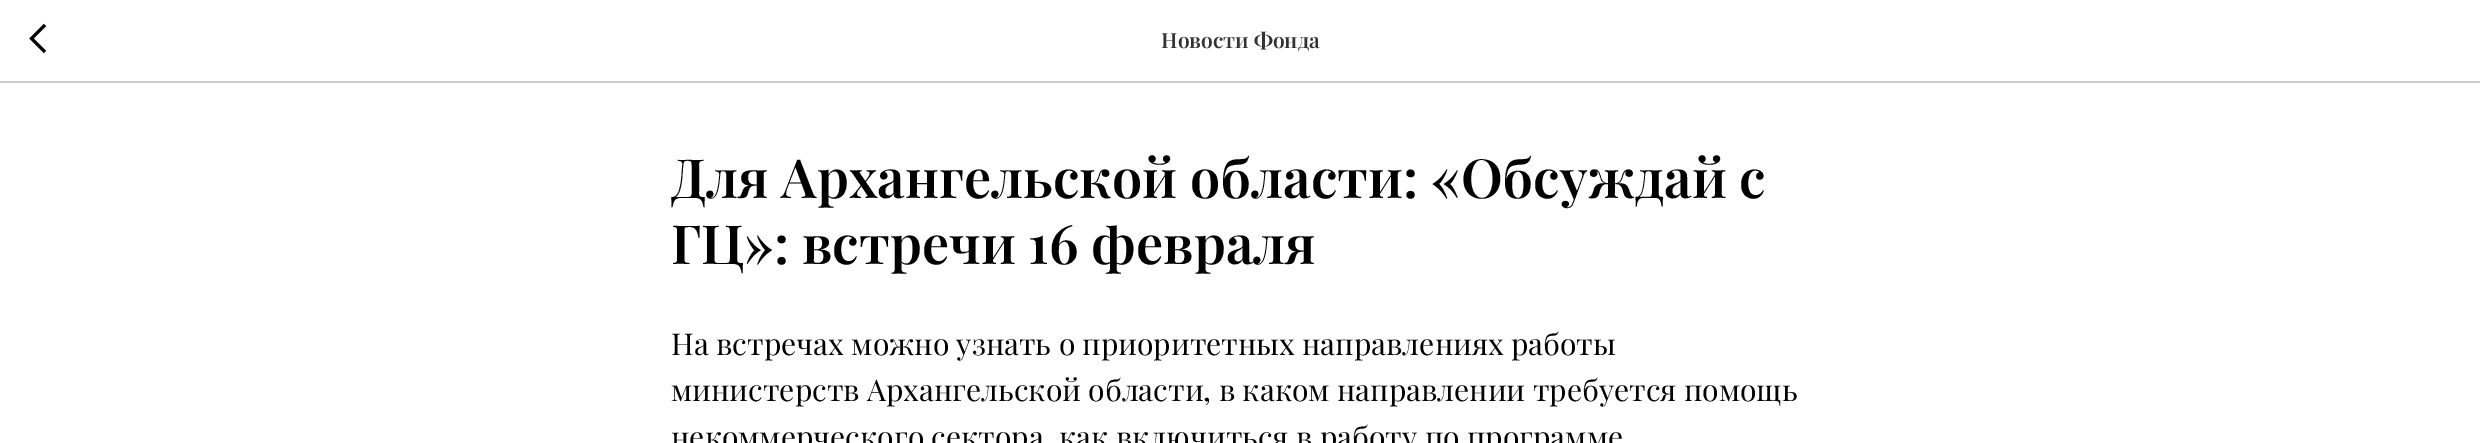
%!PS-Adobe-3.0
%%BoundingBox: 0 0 2480 443
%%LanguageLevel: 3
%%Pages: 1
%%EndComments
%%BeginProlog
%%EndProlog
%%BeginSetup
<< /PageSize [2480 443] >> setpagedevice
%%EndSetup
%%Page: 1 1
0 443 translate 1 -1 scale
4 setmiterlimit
1 setgray
0 0 2480 443 rectfill
0.8 setgray
0 81 2480 2 rectfill
0 setgray
3 setlinewidth
newpath 45 52 moveto 31.5 38.5 lineto 45 25 lineto stroke
/PlayfairDisplay-SemiBold [21 0 0 -21 0 0] selectfont
0.2 setgray
1161 48 moveto (Новости Фонда) show
/PlayfairDisplay-SemiBold [54 0 0 -54 0 0] selectfont
0 setgray
671 198 moveto (Для Архангельской области: «Обсуждай с) show
671 264 moveto (ГЦ»: встречи 16 февраля) show
/PlayfairDisplay-Regular [30 0 0 -30 0 0] selectfont
671 355 moveto (На встречах можно узнать о приоритетных направлениях работы) show
671 401 moveto (министерств Архангельской области, в каком направлении требуется помощь) show
671 448 moveto (некоммерческого сектора, как включиться в работу по программе) show
showpage
%%EOF
